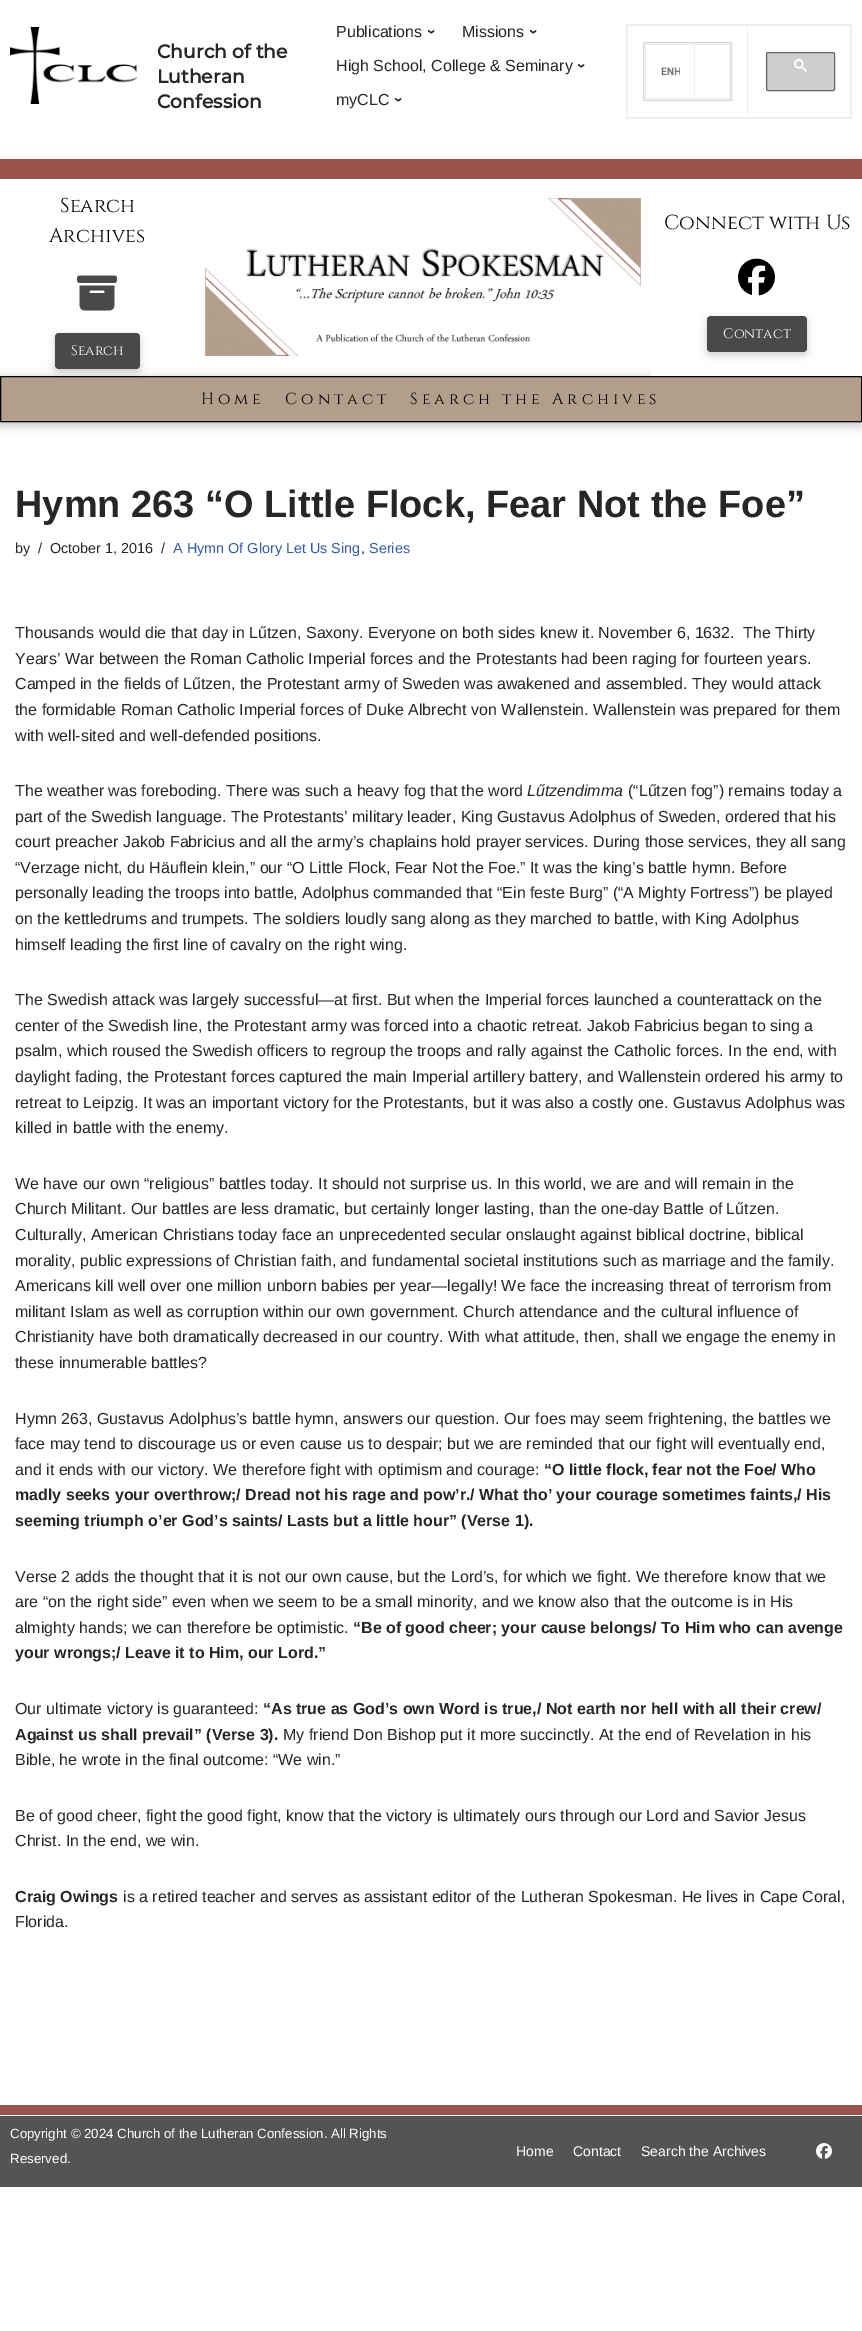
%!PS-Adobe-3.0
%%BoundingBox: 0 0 862 2331
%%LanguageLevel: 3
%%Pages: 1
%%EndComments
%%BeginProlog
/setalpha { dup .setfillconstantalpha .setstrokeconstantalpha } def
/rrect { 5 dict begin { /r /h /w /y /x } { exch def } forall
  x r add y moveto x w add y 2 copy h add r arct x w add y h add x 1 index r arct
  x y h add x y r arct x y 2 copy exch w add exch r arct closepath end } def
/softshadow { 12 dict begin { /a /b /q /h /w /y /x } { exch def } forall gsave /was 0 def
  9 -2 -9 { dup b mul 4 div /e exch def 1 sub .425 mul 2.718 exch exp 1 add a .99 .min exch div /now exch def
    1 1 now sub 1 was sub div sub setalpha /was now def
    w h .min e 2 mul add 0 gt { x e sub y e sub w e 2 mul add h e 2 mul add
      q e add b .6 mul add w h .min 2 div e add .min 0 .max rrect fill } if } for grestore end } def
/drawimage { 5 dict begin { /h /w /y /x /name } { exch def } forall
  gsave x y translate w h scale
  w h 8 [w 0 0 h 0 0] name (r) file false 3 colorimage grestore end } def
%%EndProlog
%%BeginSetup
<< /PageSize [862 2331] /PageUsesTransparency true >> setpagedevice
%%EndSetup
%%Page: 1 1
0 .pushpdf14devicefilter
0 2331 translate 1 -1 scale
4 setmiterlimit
1 setgray
0 0 862 2331 rectfill
(images/1.raw) 10 27 127 77 drawimage
0.925 0.933 0.937 setrgbcolor
747 25 1 93 rectfill
626 24 226 2 rectfill
850 24 2 95 rectfill
626 117 226 2 rectfill
626 24 2 95 rectfill
0.851 setgray
643.5 42.5 88 58 rectstroke
0.925 0.933 0.937 setrgbcolor
694 43 1 57 rectfill
644 43 87 2 rectfill
729 43 2 57 rectfill
644 98 87 2 rectfill
644 43 2 57 rectfill
(images/2.raw) 661 67 19 9 drawimage
0.808 setgray
766.5 52.5 68 38 1.5 rrect gsave fill grestore
0.4 setgray
stroke
(images/3.raw) 794 59 13 13 drawimage
0.608 0.322 0.298 setrgbcolor
0 159 862 20 rectfill
(images/4.raw) 77 275 40 36 drawimage
0 setgray
0 379 862 46 0 5.5 0.25 softshadow
0.694 0.624 0.545 setrgbcolor
newpath 0.5 376.5 moveto 861.5 376.5 lineto 861.5 421.5 lineto 0.5 421.5 lineto closepath gsave fill grestore
0 setgray
stroke
55 336 85 36 4 4 0.2 softshadow
0.286 setgray
55 333 85 36 4 rrect fill
(images/5.raw) 205 198 436 158 drawimage
1 setgray
651 369 211 7 rectfill
(images/6.raw) 738 258 37 38 drawimage
0 setgray
707 319 100 36 4 4 0.2 softshadow
0.286 setgray
707 316 100 36 4 rrect fill
0.608 0.322 0.298 setrgbcolor
0 2105 862 10 rectfill
0.329 setgray
0 2116 862 71 rectfill
(images/7.raw) 816 2143 16 16 drawimage
/Montserrat-Bold [18.75 0 0 -18.75 0 0] selectfont
0.153 0.149 0.149 setrgbcolor
157 58 moveto (Church of the) show
157 83 moveto (Lutheran) show
157 108 moveto (Confession) show
/LiberationSans-Regular [16 0 0 -16 0 0] selectfont
336 37 moveto (Publications) show
/LiberationSans-Bold [16 0 0 -16 0 0] selectfont
gsave 427 29 translate 90 rotate 0 0 moveto (›) show grestore
/LiberationSans-Regular [16 0 0 -16 0 0] selectfont
462 37 moveto (Missions) show
/LiberationSans-Bold [16 0 0 -16 0 0] selectfont
gsave 529 29 translate 90 rotate 0 0 moveto (›) show grestore
/LiberationSans-Regular [16 0 0 -16 0 0] selectfont
336 71 moveto (High School, College & Seminary) show
/LiberationSans-Bold [16 0 0 -16 0 0] selectfont
gsave 577 63 translate 90 rotate 0 0 moveto (›) show grestore
/LiberationSans-Regular [16 0 0 -16 0 0] selectfont
336 105 moveto (myCLC) show
/LiberationSans-Bold [16 0 0 -16 0 0] selectfont
gsave 394 97 translate 90 rotate 0 0 moveto (›) show grestore
/Cinzel-Regular [20 0 0 -20 0 0] selectfont
0 setgray
60 212 moveto (Search) show
49 242 moveto (Archives) show
/Cinzel-Regular [14 0 0 -14 0 0] selectfont
1 setgray
71 355 moveto (Search) show
/Cinzel-Regular [20.25 0 0 -20.25 0 0] selectfont
0 setgray
664 229 moveto (Connect with Us) show
/Cinzel-Regular [14 0 0 -14 0 0] selectfont
1 setgray
723 338 moveto (Contact) show
/Cinzel-Regular [16 0 0 -16 0 0] selectfont
0 setgray
201 404 moveto 4 0 (Home) ashow
285 404 moveto 4 0 (Contact) ashow
410 404 moveto 4 0 (Search the Archives) ashow
/LiberationSans-Bold [38 0 0 -38 0 0] selectfont
0.153 0.149 0.149 setrgbcolor
15 517 moveto (Hymn 263 “O Little Flock, Fear Not the Foe”) show
/LiberationSans-Regular [14.4 0 0 -14.4 0 0] selectfont
15 553 moveto (by) show
38 553 moveto (/) show
50 553 moveto (October 1, 2016) show
161 553 moveto (/) show
0.184 0.353 0.682 setrgbcolor
173 553 moveto (A Hymn Of Glory Let Us Sing) show
0.153 0.149 0.149 setrgbcolor
361 553 moveto (,) show
0.184 0.353 0.682 setrgbcolor
369 553 moveto (Series) show
/LiberationSans-Regular [16 0 0 -16 0 0] selectfont
0.153 0.149 0.149 setrgbcolor
15 638 moveto (Thousands would die that day in Lűtzen, Saxony. Everyone on both sides knew it. November 6, 1632.  The Thirty) show
15 664 moveto (Years’ War between the Roman Catholic Imperial forces and the Protestants had been raging for fourteen years.) show
15 689 moveto (Camped in the fields of Lűtzen, the Protestant army of Sweden was awakened and assembled. They would attack) show
15 715 moveto (the formidable Roman Catholic Imperial forces of Duke Albrecht von Wallenstein. Wallenstein was prepared for them) show
15 741 moveto (with well-sited and well-defended positions.) show
15 796 moveto (The weather was foreboding. There was such a heavy fog that the word) show
/LiberationSans-Italic [16 0 0 -16 0 0] selectfont
527 796 moveto (Lűtzendimma) show
/LiberationSans-Regular [16 0 0 -16 0 0] selectfont
628 796 moveto (\(“Lűtzen fog”\) remains today a) show
15 822 moveto (part of the Swedish language. The Protestants’ military leader, King Gustavus Adolphus of Sweden, ordered that his) show
15 847 moveto (court preacher Jakob Fabricius and all the army’s chaplains hold prayer services. During those services, they all sang) show
15 873 moveto (“Verzage nicht, du Häuflein klein,” our “O Little Flock, Fear Not the Foe.” It was the king’s battle hymn. Before) show
15 898 moveto (personally leading the troops into battle, Adolphus commanded that “Ein feste Burg” \(“A Mighty Fortress”\) be played) show
15 924 moveto (on the kettledrums and trumpets. The soldiers loudly sang along as they marched to battle, with King Adolphus) show
15 950 moveto (himself leading the first line of cavalry on the right wing.) show
15 1005 moveto (The Swedish attack was largely successful—at first. But when the Imperial forces launched a counterattack on the) show
15 1031 moveto (center of the Swedish line, the Protestant army was forced into a chaotic retreat. Jakob Fabricius began to sing a) show
15 1056 moveto (psalm, which roused the Swedish officers to regroup the troops and rally against the Catholic forces. In the end, with) show
15 1082 moveto (daylight fading, the Protestant forces captured the main Imperial artillery battery, and Wallenstein ordered his army to) show
15 1108 moveto (retreat to Leipzig. It was an important victory for the Protestants, but it was also a costly one. Gustavus Adolphus was) show
15 1133 moveto (killed in battle with the enemy.) show
15 1189 moveto (We have our own “religious” battles today. It should not surprise us. In this world, we are and will remain in the) show
15 1214 moveto (Church Militant. Our battles are less dramatic, but certainly longer lasting, than the one-day Battle of Lűtzen.) show
15 1240 moveto (Culturally, American Christians today face an unprecedented secular onslaught against biblical doctrine, biblical) show
15 1266 moveto (morality, public expressions of Christian faith, and fundamental societal institutions such as marriage and the family.) show
15 1291 moveto (Americans kill well over one million unborn babies per year—legally! We face the increasing threat of terrorism from) show
15 1317 moveto (militant Islam as well as corruption within our own government. Church attendance and the cultural influence of) show
15 1342 moveto (Christianity have both dramatically decreased in our country. With what attitude, then, shall we engage the enemy in) show
15 1368 moveto (these innumerable battles?) show
15 1424 moveto (Hymn 263, Gustavus Adolphus’s battle hymn, answers our question. Our foes may seem frightening, the battles we) show
15 1449 moveto (face may tend to discourage us or even cause us to despair; but we are reminded that our fight will eventually end,) show
15 1475 moveto (and it ends with our victory. We therefore fight with optimism and courage:) show
/LiberationSans-Bold [16 0 0 -16 0 0] selectfont
544 1475 moveto (“O little flock, fear not the Foe/ Who) show
15 1500 moveto (madly seeks your overthrow;/ Dread not his rage and pow’r./ What tho’ your courage sometimes faints,/ His) show
15 1526 moveto (seeming triumph o’er God’s saints/ Lasts but a little hour” \(Verse 1\).) show
/LiberationSans-Regular [16 0 0 -16 0 0] selectfont
15 1582 moveto (Verse 2 adds the thought that it is not our own cause, but the Lord’s, for which we fight. We therefore know that we) show
15 1607 moveto (are “on the right side” even when we seem to be a small minority, and we know also that the outcome is in His) show
15 1633 moveto (almighty hands; we can therefore be optimistic.) show
/LiberationSans-Bold [16 0 0 -16 0 0] selectfont
353 1633 moveto (“Be of good cheer; your cause belongs/ To Him who can avenge) show
15 1658 moveto (your wrongs;/ Leave it to Him, our Lord.”) show
/LiberationSans-Regular [16 0 0 -16 0 0] selectfont
15 1714 moveto (Our ultimate victory is guaranteed:) show
/LiberationSans-Bold [16 0 0 -16 0 0] selectfont
263 1714 moveto (“As true as God’s own Word is true,/ Not earth nor hell with all their crew/) show
15 1740 moveto (Against us shall prevail” \(Verse 3\).) show
/LiberationSans-Regular [16 0 0 -16 0 0] selectfont
283 1740 moveto (My friend Don Bishop put it more succinctly. At the end of Revelation in his) show
15 1765 moveto (Bible, he wrote in the final outcome: “We win.”) show
15 1821 moveto (Be of good cheer, fight the good fight, know that the victory is ultimately ours through our Lord and Savior Jesus) show
15 1846 moveto (Christ. In the end, we win.) show
/LiberationSans-Bold [16 0 0 -16 0 0] selectfont
15 1902 moveto (Craig Owings) show
/LiberationSans-Regular [16 0 0 -16 0 0] selectfont
123 1902 moveto (is a retired teacher and serves as assistant editor of the Lutheran Spokesman. He lives in Cape Coral,) show
15 1927 moveto (Florida.) show
/LiberationSans-Regular [13.3 0 0 -13.3 0 0] selectfont
1 setgray
10 2138 moveto (Copyright © 2024 Church of the Lutheran Confession. All Rights) show
10 2163 moveto (Reserved.) show
/LiberationSans-Regular [14 0 0 -14 0 0] selectfont
516 2156 moveto (Home) show
573 2156 moveto (Contact) show
641 2156 moveto (Search the Archives) show
.poppdf14devicefilter showpage
%%EOF
